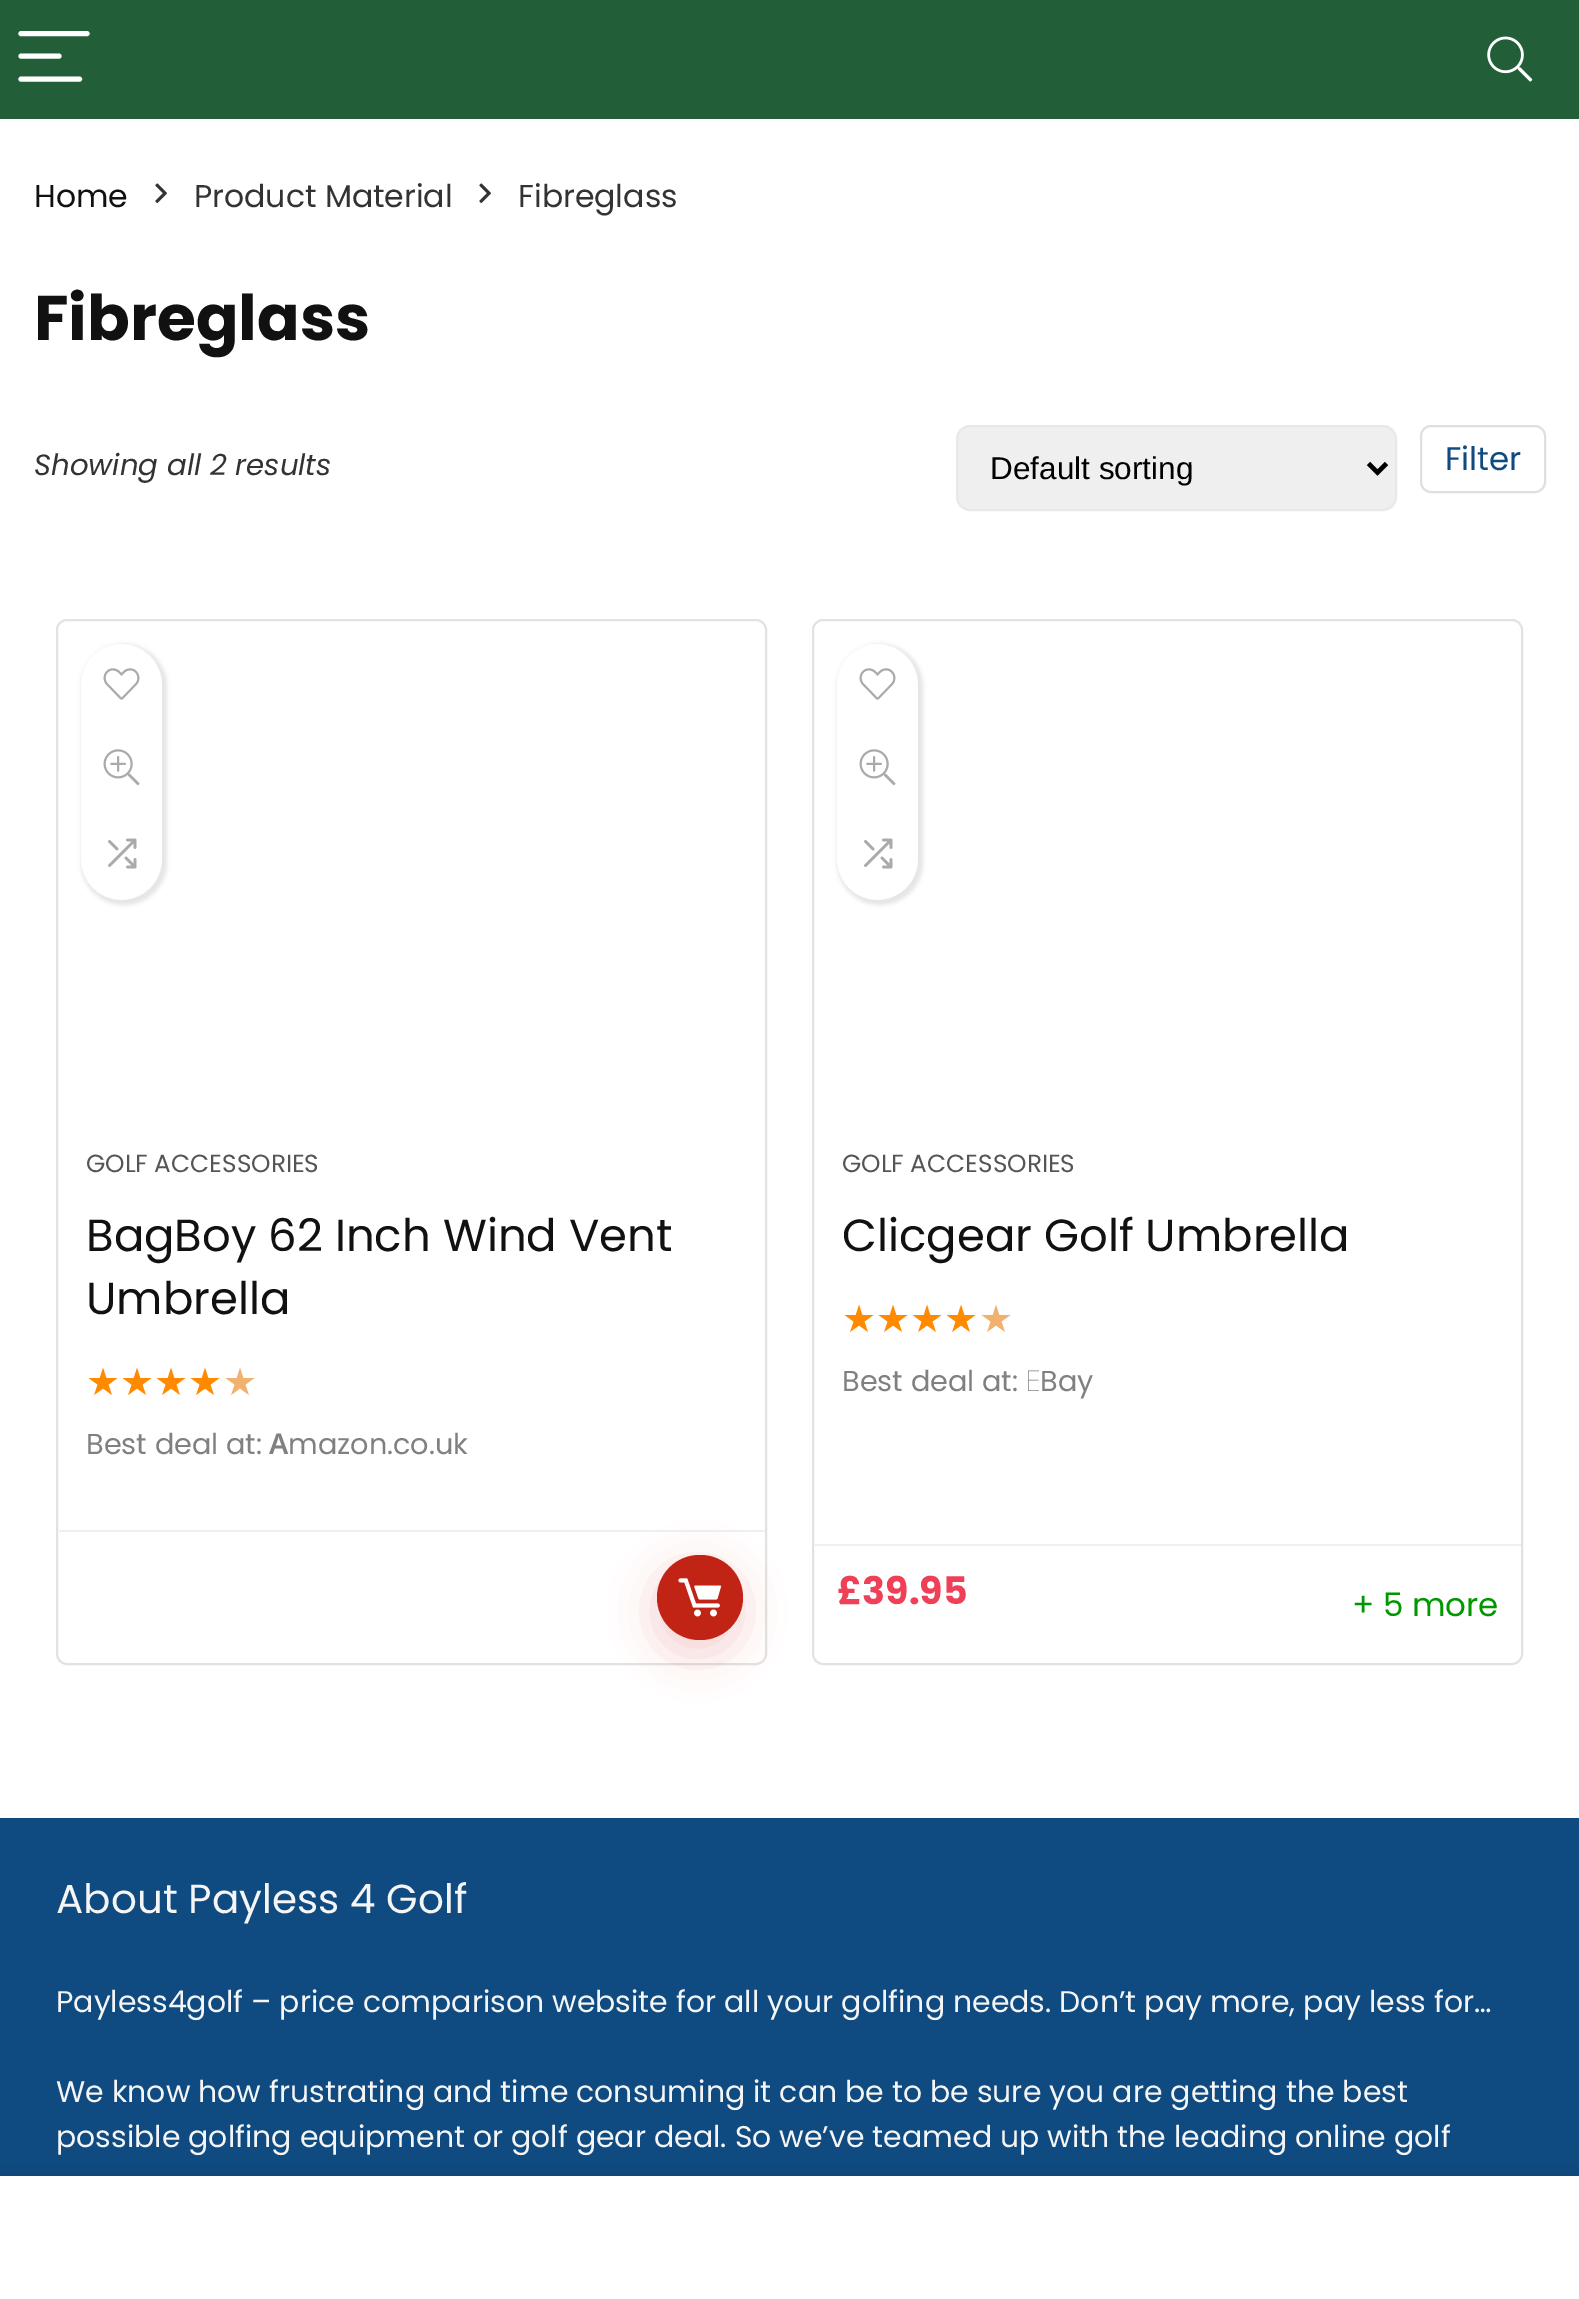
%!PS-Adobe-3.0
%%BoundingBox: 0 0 1579 2299
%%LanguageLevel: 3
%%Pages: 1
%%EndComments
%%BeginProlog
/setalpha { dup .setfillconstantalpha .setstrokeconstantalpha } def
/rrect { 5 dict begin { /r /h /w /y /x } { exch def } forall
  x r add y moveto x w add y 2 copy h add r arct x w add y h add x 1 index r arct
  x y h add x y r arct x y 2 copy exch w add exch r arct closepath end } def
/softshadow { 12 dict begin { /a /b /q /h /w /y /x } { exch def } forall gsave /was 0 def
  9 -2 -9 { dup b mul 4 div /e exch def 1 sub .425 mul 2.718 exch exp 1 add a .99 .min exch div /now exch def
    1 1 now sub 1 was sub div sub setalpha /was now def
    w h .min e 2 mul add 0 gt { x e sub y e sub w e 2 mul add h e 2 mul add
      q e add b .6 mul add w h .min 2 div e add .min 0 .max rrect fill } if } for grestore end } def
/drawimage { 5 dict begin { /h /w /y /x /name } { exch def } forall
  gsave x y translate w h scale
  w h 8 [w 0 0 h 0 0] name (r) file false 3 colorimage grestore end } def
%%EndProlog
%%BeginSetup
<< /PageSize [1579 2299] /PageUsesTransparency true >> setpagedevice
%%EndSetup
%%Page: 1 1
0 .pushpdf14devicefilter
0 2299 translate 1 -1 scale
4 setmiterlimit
1 setgray
0 0 1579 2299 rectfill
0.133 0.373 0.22 setrgbcolor
0 0 1579 119 rectfill
1 setgray
5.1 setlinewidth
1 setlinecap
newpath 21 33.5 moveto 87 33.5 lineto stroke
newpath 21 56 moveto 59 56 lineto stroke
newpath 21 79 moveto 79.5 79 lineto stroke
(images/1.raw) 1487 36 46 46 drawimage
0.059 0.294 0.506 setrgbcolor
0 1818 1579 358 rectfill
0 setgray
0 2176 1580 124 0 10 0.12 softshadow
1 setgray
0 2176 1579 123 rectfill
(images/2.raw) 155 183 12 20 drawimage
(images/2.raw) 479 183 12 20 drawimage
0.937 setgray
957 426 439 84 13 rrect gsave fill grestore
0.91 setgray
2 setlinewidth
0 setlinecap
stroke
0 setgray
4.5 setlinewidth
newpath 1368.5 463.5 moveto 1377.5 472.5 lineto 1386.5 463.5 lineto stroke
0.863 0.878 0.878 setrgbcolor
2 setlinewidth
1421 426 124 66 10 rrect stroke
0.886 setgray
57 620 709 1044 10 rrect stroke
gsave
newpath 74 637 moveto 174 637 lineto 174 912 lineto 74 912 lineto closepath 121.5 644 moveto 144 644 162 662 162 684.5 curveto 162 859.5 lineto 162 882 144 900 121.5 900 curveto 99 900 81 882 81 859.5 curveto 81 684.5 lineto 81 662 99 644 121.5 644 curveto closepath eoclip newpath
0 setgray
81 644 86 261 43 2 0.1 softshadow
grestore
0.78 setalpha
1 setgray
81 644 81 256 40.5 rrect fill
1 setalpha
(images/3.raw) 103 668 37 32 drawimage
(images/4.raw) 103 749 37 37 drawimage
(images/5.raw) 108 838 29 31 drawimage
0.941 setgray
59 1530 706 2 rectfill
0.757 0.141 0.082 setrgbcolor
655 1568 85 86 42.5 21.5 0.2 softshadow
657 1555 86 85 42.5 rrect fill
(images/6.raw) 678 1578 44 39 drawimage
0.886 setgray
813 620 709 1044 10 rrect stroke
gsave
newpath 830 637 moveto 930 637 lineto 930 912 lineto 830 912 lineto closepath 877.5 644 moveto 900 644 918 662 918 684.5 curveto 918 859.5 lineto 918 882 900 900 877.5 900 curveto 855 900 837 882 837 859.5 curveto 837 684.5 lineto 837 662 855 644 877.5 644 curveto closepath eoclip newpath
0 setgray
837 644 86 261 43 2 0.1 softshadow
grestore
0.78 setalpha
1 setgray
837 644 81 256 40.5 rrect fill
1 setalpha
(images/3.raw) 859 668 37 32 drawimage
(images/4.raw) 859 749 37 37 drawimage
(images/5.raw) 864 838 29 31 drawimage
0.941 setgray
815 1544 706 2 rectfill
/Poppins-Regular [31.5 0 0 -31.5 0 0] selectfont
0.067 setgray
34 207 moveto (Home) show
0.2 setgray
194 207 moveto (Product Material) show
518 207 moveto (Fibreglass) show
/Poppins-Bold [63 0 0 -63 0 0] selectfont
0.067 setgray
34 340 moveto (Fibreglass) show
/Poppins-Italic [29.25 0 0 -29.25 0 0] selectfont
0.2 setgray
34 475 moveto (Showing all 2 results) show
/LiberationSans-Regular [31.5 0 0 -31.5 0 0] selectfont
0 setgray
990 479 moveto (Default sorting) show
/Poppins-Regular [32.5 0 0 -32.5 0 0] selectfont
0.059 0.294 0.506 setrgbcolor
1445 470 moveto (Filter) show
/Poppins-Regular [24.75 0 0 -24.75 0 0] selectfont
0.333 setgray
86 1172 moveto (GOLF ACCESSORIES) show
/Poppins-Regular [45 0 0 -45 0 0] selectfont
0.067 setgray
86 1251 moveto (BagBoy 62 Inch Wind Vent) show
86 1314 moveto (Umbrella) show
/DejaVuSans-Regular [38 0 0 -38 0 0] selectfont
1 0.541 0 setrgbcolor
86 1395 moveto (★★★★) show
0.941 0.698 0.431 setrgbcolor
223 1395 moveto (★) show
/Poppins-Regular [28.75 0 0 -28.75 0 0] selectfont
0.502 setgray
86 1454 moveto (Best deal at:) show
/NotoSans-SemiBold [28.75 0 0 -28.75 0 0] selectfont
269 1454 moveto (A) show
/Poppins-Regular [28.75 0 0 -28.75 0 0] selectfont
288 1454 moveto (mazon.co.uk) show
/Poppins-Regular [24.75 0 0 -24.75 0 0] selectfont
0.333 setgray
842 1172 moveto (GOLF ACCESSORIES) show
/Poppins-Regular [45 0 0 -45 0 0] selectfont
0.067 setgray
842 1251 moveto (Clicgear Golf Umbrella) show
/DejaVuSans-Regular [38 0 0 -38 0 0] selectfont
1 0.541 0 setrgbcolor
842 1332 moveto (★★★★) show
0.941 0.698 0.431 setrgbcolor
979 1332 moveto (★) show
/Poppins-Regular [28.75 0 0 -28.75 0 0] selectfont
0.502 setgray
842 1391 moveto (Best deal at:) show
/NotoSans-Thin [28.75 0 0 -28.75 0 0] selectfont
1025 1391 moveto (E) show
/Poppins-Regular [28.75 0 0 -28.75 0 0] selectfont
1040 1391 moveto (Bay) show
/Poppins-Bold [38 0 0 -38 0 0] selectfont
0.941 0.251 0.341 setrgbcolor
837 1604 moveto (£39.95) show
/Poppins-Regular [32.5 0 0 -32.5 0 0] selectfont
0 0.592 0 setrgbcolor
1352 1616 moveto (+ 5 more) show
/Poppins-Regular [40.5 0 0 -40.5 0 0] selectfont
0.961 setgray
56 1913 moveto (About Payless 4 Golf) show
/Poppins-Regular [29.95 0 0 -29.95 0 0] selectfont
56 2012 moveto (Payless4golf – price comparison website for all your golfing needs. Don’t pay more, pay less for…) show
56 2102 moveto (We know how frustrating and time consuming it can be to be sure you are getting the best) show
56 2147 moveto (possible golfing equipment or golf gear deal. So we’ve teamed up with the leading online golf) show
.poppdf14devicefilter showpage
%%EOF
